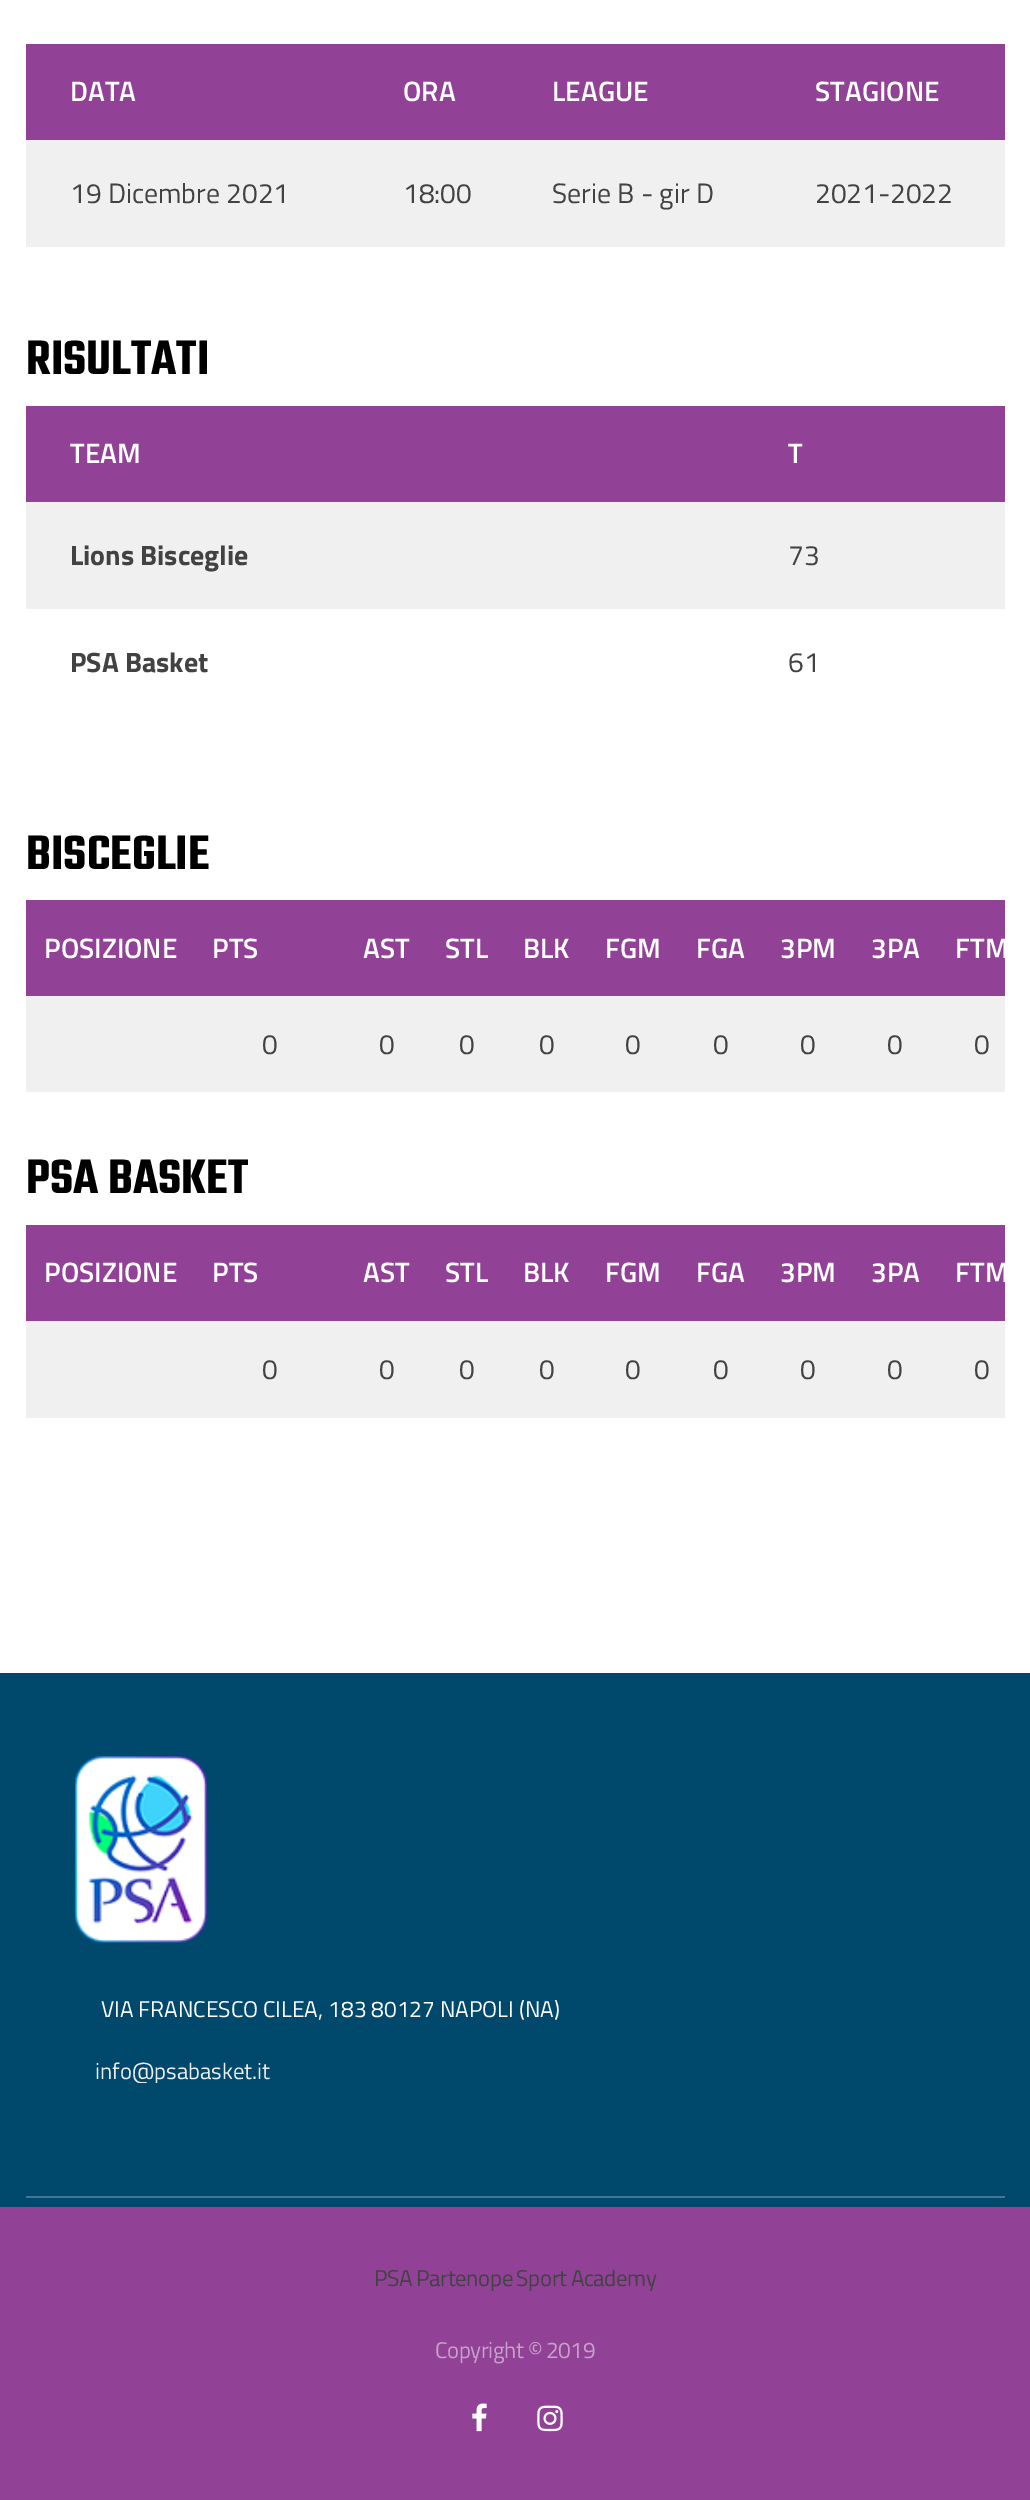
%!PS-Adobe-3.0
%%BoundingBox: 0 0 1030 2500
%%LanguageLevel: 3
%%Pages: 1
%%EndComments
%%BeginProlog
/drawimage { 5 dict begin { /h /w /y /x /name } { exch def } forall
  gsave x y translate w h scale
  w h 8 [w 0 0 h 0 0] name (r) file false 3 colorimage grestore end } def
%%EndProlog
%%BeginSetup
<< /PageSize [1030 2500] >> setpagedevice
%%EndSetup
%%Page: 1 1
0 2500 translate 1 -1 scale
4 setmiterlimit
1 setgray
0 0 1030 2500 rectfill
0.569 0.259 0.588 setrgbcolor
26 44 979 96 rectfill
0.941 setgray
26 140 979 107 rectfill
0.569 0.259 0.588 setrgbcolor
26 406 979 96 rectfill
0.941 setgray
26 502 979 107 rectfill
0.569 0.259 0.588 setrgbcolor
26 900 979 96 rectfill
0.941 setgray
26 996 979 96 rectfill
0.569 0.259 0.588 setrgbcolor
26 1225 979 96 rectfill
0.941 setgray
26 1321 979 97 rectfill
0 0.286 0.427 setrgbcolor
0 1673 1030 534 rectfill
(images/1.raw) 74 1756 133 187 drawimage
0.251 0.467 0.573 setrgbcolor
26 2196 979 2 rectfill
0.569 0.259 0.588 setrgbcolor
0 2207 1030 293 rectfill
(images/2.raw) 472 2403 15 29 drawimage
(images/3.raw) 537 2405 26 27 drawimage
/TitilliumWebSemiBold-SemiBold [28 0 0 -28 0 0] selectfont
1 setgray
70 101 moveto (DATA) show
403 101 moveto (ORA) show
552 101 moveto (LEAGUE) show
815 101 moveto (STAGIONE) show
/TitilliumWeb-Regular [28 0 0 -28 0 0] selectfont
0.259 setgray
70 203 moveto (19 Dicembre 2021) show
403 203 moveto (18:00) show
552 203 moveto (Serie B - gir D) show
815 203 moveto (2021-2022) show
/Teko-SemiBold [52.5 0 0 -52.5 0 0] selectfont
0 setgray
26 374 moveto (RISULTATI) show
/TitilliumWebSemiBold-SemiBold [28 0 0 -28 0 0] selectfont
1 setgray
70 463 moveto (TEAM) show
788 463 moveto (T) show
/TitilliumWeb-Bold [28 0 0 -28 0 0] selectfont
0.259 setgray
70 565 moveto (Lions Bisceglie) show
/TitilliumWeb-Regular [28 0 0 -28 0 0] selectfont
788 565 moveto (73) show
/TitilliumWeb-Bold [28 0 0 -28 0 0] selectfont
70 672 moveto (PSA Basket) show
/TitilliumWeb-Regular [28 0 0 -28 0 0] selectfont
788 672 moveto (61) show
/Teko-SemiBold [52.5 0 0 -52.5 0 0] selectfont
0 setgray
26 869 moveto (BISCEGLIE) show
/TitilliumWebSemiBold-SemiBold [28 0 0 -28 0 0] selectfont
1 setgray
44 958 moveto (POSIZIONE) show
212 958 moveto (PTS) show
363 958 moveto (AST) show
445 958 moveto (STL) show
523 958 moveto (BLK) show
605 958 moveto (FGM) show
696 958 moveto (FGA) show
780 958 moveto (3PM) show
871 958 moveto (3PA) show
gsave
26 900 979 227 rectclip
955 958 moveto (FTM) show
grestore
/TitilliumWeb-Regular [28 0 0 -28 0 0] selectfont
0.259 setgray
262 1054 moveto (0) show
379 1054 moveto (0) show
459 1054 moveto (0) show
539 1054 moveto (0) show
625 1054 moveto (0) show
713 1054 moveto (0) show
800 1054 moveto (0) show
887 1054 moveto (0) show
974 1054 moveto (0) show
/Teko-SemiBold [52.5 0 0 -52.5 0 0] selectfont
0 setgray
26 1193 moveto (PSA BASKET) show
/TitilliumWebSemiBold-SemiBold [28 0 0 -28 0 0] selectfont
1 setgray
44 1282 moveto (POSIZIONE) show
212 1282 moveto (PTS) show
363 1282 moveto (AST) show
445 1282 moveto (STL) show
523 1282 moveto (BLK) show
605 1282 moveto (FGM) show
696 1282 moveto (FGA) show
780 1282 moveto (3PM) show
871 1282 moveto (3PA) show
gsave
26 1225 979 228 rectclip
955 1282 moveto (FTM) show
grestore
/TitilliumWeb-Regular [28 0 0 -28 0 0] selectfont
0.259 setgray
262 1379 moveto (0) show
379 1379 moveto (0) show
459 1379 moveto (0) show
539 1379 moveto (0) show
625 1379 moveto (0) show
713 1379 moveto (0) show
800 1379 moveto (0) show
887 1379 moveto (0) show
974 1379 moveto (0) show
/TitilliumWeb-Regular [22.75 0 0 -22.75 0 0] selectfont
1 setgray
101 2017 moveto (VIA FRANCESCO CILEA, 183 80127 NAPOLI \(NA\)) show
gsave
95 2060 175 23 rectclip
0.929 setgray
95 2079 moveto (info@psabasket.it) show
grestore
0.259 setgray
374 2286 moveto -1 0 32 -0.35 0 (PSA Partenope Sport Academy) awidthshow
0.784 0.631 0.796 setrgbcolor
435 2358 moveto -1 0 32 -0.35 0 (Copyright © 2019) awidthshow
showpage
%%EOF
